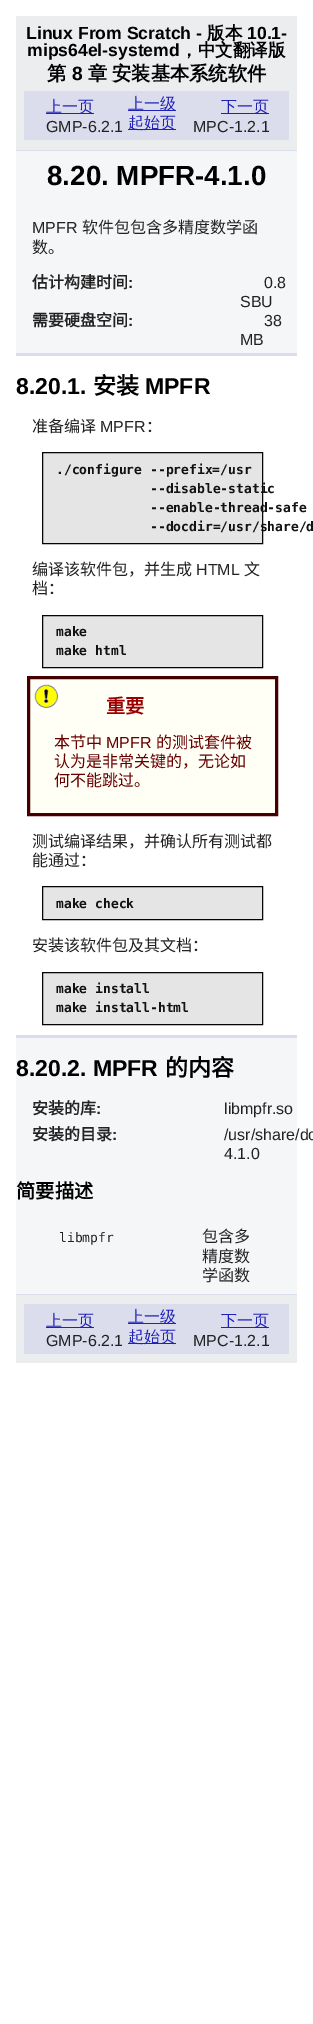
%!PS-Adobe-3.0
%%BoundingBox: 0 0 313 2024
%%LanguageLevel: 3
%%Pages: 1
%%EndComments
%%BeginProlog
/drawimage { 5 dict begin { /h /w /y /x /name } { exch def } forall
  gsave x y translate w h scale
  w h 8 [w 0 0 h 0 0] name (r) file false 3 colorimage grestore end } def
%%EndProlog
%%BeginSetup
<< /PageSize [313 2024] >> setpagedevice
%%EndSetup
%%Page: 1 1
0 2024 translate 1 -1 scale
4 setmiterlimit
1 setgray
0 0 313 2024 rectfill
0.925 0.929 0.937 setrgbcolor
16 16 281 134 rectfill
0.859 0.867 0.925 setrgbcolor
16 150 281 1 rectfill
24 91 265 49 rectfill
0.133 0.133 0.733 setrgbcolor
46 113 48 1 rectfill
128 110 48 1 rectfill
221 113 48 1 rectfill
128 129 48 1 rectfill
0.961 0.965 0.969 setrgbcolor
16 151 281 202 rectfill
0.859 0.867 0.925 setrgbcolor
16 353 281 3 rectfill
0.898 setgray
newpath 42.5 452.5 moveto 262.5 452.5 lineto 262.5 543.5 lineto 42.5 543.5 lineto closepath gsave fill grestore
0.02 setgray
stroke
0.898 setgray
newpath 42.5 615.5 moveto 262.5 615.5 lineto 262.5 667.5 lineto 42.5 667.5 lineto closepath gsave fill grestore
0.02 setgray
stroke
1 1 0.965 setrgbcolor
newpath 28.5 677.5 moveto 276.5 677.5 lineto 276.5 814.5 lineto 28.5 814.5 lineto closepath gsave fill grestore
0.267 0 0 setrgbcolor
3 setlinewidth
stroke
(images/1.raw) 34 684 24 24 drawimage
0.898 setgray
newpath 42.5 886.5 moveto 262.5 886.5 lineto 262.5 919.5 lineto 42.5 919.5 lineto closepath gsave fill grestore
0.02 setgray
1 setlinewidth
stroke
0.898 setgray
newpath 42.5 972.5 moveto 262.5 972.5 lineto 262.5 1024.5 lineto 42.5 1024.5 lineto closepath gsave fill grestore
0.02 setgray
stroke
0.961 0.965 0.969 setrgbcolor
16 1038 281 256 rectfill
0.859 0.867 0.925 setrgbcolor
16 1035 281 3 rectfill
0.925 0.929 0.937 setrgbcolor
16 1295 281 68 rectfill
0.859 0.867 0.925 setrgbcolor
16 1294 281 1 rectfill
24 1304 265 50 rectfill
0.133 0.133 0.733 setrgbcolor
46 1327 48 1 rectfill
128 1323 48 1 rectfill
221 1327 48 1 rectfill
128 1343 48 1 rectfill
/LiberationSans-Bold [17.6 0 0 -17.6 0 0] selectfont
0 setgray
26 39 moveto (Linux From Scratch -) show
/WenQuanYiZenHei-Bold [17.6 0 0 -17.6 0 0] selectfont
207 39 moveto (版本) show
/LiberationSans-Bold [17.6 0 0 -17.6 0 0] selectfont
247 39 moveto (10.1-) show
27 56 moveto (mips64el-systemd) show
/WenQuanYiZenHei-Bold [17.6 0 0 -17.6 0 0] selectfont
180 56 moveto (，中文翻译版) show
/WenQuanYiZenHei-Bold [19.25 0 0 -19.25 0 0] selectfont
47 80 moveto (第) show
/LiberationSans-Bold [19.25 0 0 -19.25 0 0] selectfont
72 80 moveto (8) show
/WenQuanYiZenHei-Bold [19.25 0 0 -19.25 0 0] selectfont
88 80 moveto (章) show
112 80 moveto (安装基本系统软件) show
/WenQuanYiZenHei-Medium [16 0 0 -16 0 0] selectfont
0.133 0.133 0.733 setrgbcolor
46 112 moveto (上一页) show
/LiberationSans-Regular [16 0 0 -16 0 0] selectfont
0.133 setgray
46 132 moveto (GMP-6.2.1) show
/WenQuanYiZenHei-Medium [16 0 0 -16 0 0] selectfont
0.133 0.133 0.733 setrgbcolor
128 109 moveto (上一级) show
221 112 moveto (下一页) show
/LiberationSans-Regular [16 0 0 -16 0 0] selectfont
0.133 setgray
193 132 moveto (MPC-1.2.1) show
/WenQuanYiZenHei-Medium [16 0 0 -16 0 0] selectfont
0.133 0.133 0.733 setrgbcolor
128 128 moveto (起始页) show
/LiberationSans-Bold [27.75 0 0 -27.75 0 0] selectfont
0 setgray
47 185 moveto (8.20. MPFR-4.1.0) show
/LiberationSans-Regular [16 0 0 -16 0 0] selectfont
0.133 setgray
32 233 moveto (MPFR) show
/NotoSansCJKSC-Regular [16 0 0 -16 0 0] selectfont
82 233 moveto (软件包包含多精度数学函) show
32 253 moveto (数。) show
/NotoSansCJKSC-Bold [16 0 0 -16 0 0] selectfont
32 288 moveto (估计构建时间) show
/LiberationSans-Bold [16 0 0 -16 0 0] selectfont
128 288 moveto (:) show
/LiberationSans-Regular [16 0 0 -16 0 0] selectfont
264 288 moveto (0.8) show
240 307 moveto (SBU) show
/NotoSansCJKSC-Bold [16 0 0 -16 0 0] selectfont
32 326 moveto (需要硬盘空间) show
/LiberationSans-Bold [16 0 0 -16 0 0] selectfont
128 326 moveto (:) show
/LiberationSans-Regular [16 0 0 -16 0 0] selectfont
264 326 moveto (38) show
240 345 moveto (MB) show
/LiberationSans-Bold [23 0 0 -23 0 0] selectfont
0 setgray
16 394 moveto (8.20.1.) show
/NotoSansCJKSC-Bold [23 0 0 -23 0 0] selectfont
93 394 moveto (安装) show
/LiberationSans-Bold [23 0 0 -23 0 0] selectfont
145 394 moveto (MPFR) show
/NotoSansCJKSC-Regular [16 0 0 -16 0 0] selectfont
0.133 setgray
32 432 moveto (准备编译) show
/LiberationSans-Regular [16 0 0 -16 0 0] selectfont
100 432 moveto (MPFR) show
/NotoSansCJKSC-Regular [16 0 0 -16 0 0] selectfont
146 432 moveto (：) show
/DejaVuSansMono-Bold [13 0 0 -13 0 0] selectfont
0.063 0.075 0.063 setrgbcolor
56 474 moveto (./configure --prefix=/usr) show
150 493 moveto (--disable-static) show
150 512 moveto (--enable-thread-safe) show
150 531 moveto (--docdir=/usr/share/d) show
/NotoSansCJKSC-Regular [16 0 0 -16 0 0] selectfont
0.133 setgray
32 575 moveto (编译该软件包，并生成) show
/LiberationSans-Regular [16 0 0 -16 0 0] selectfont
196 575 moveto (HTML) show
/NotoSansCJKSC-Regular [16 0 0 -16 0 0] selectfont
244 575 moveto (文) show
32 594 moveto (档：) show
/DejaVuSansMono-Bold [13 0 0 -13 0 0] selectfont
0.063 0.075 0.063 setrgbcolor
56 636 moveto (make) show
56 655 moveto (make html) show
/NotoSansCJKSC-Bold [19.25 0 0 -19.25 0 0] selectfont
0.6 0 0 setrgbcolor
106 713 moveto (重要) show
/NotoSansCJKSC-Regular [16 0 0 -16 0 0] selectfont
0.4 0 0 setrgbcolor
54 748 moveto (本节中) show
/LiberationSans-Regular [16 0 0 -16 0 0] selectfont
106 748 moveto (MPFR) show
/NotoSansCJKSC-Regular [16 0 0 -16 0 0] selectfont
156 748 moveto (的测试套件被) show
54 767 moveto (认为是非常关键的，无论如) show
54 786 moveto (何不能跳过。) show
0.133 setgray
32 847 moveto (测试编译结果，并确认所有测试都) show
32 866 moveto (能通过：) show
/DejaVuSansMono-Bold [13 0 0 -13 0 0] selectfont
0.063 0.075 0.063 setrgbcolor
56 908 moveto (make check) show
/NotoSansCJKSC-Regular [16 0 0 -16 0 0] selectfont
0.133 setgray
32 951 moveto (安装该软件包及其文档：) show
/DejaVuSansMono-Bold [13 0 0 -13 0 0] selectfont
0.063 0.075 0.063 setrgbcolor
56 993 moveto (make install) show
56 1012 moveto (make install-html) show
/LiberationSans-Bold [23 0 0 -23 0 0] selectfont
0 setgray
16 1076 moveto (8.20.2. MPFR) show
/NotoSansCJKSC-Bold [23 0 0 -23 0 0] selectfont
165 1076 moveto (的内容) show
/NotoSansCJKSC-Bold [16 0 0 -16 0 0] selectfont
0.133 setgray
32 1114 moveto (安装的库) show
/LiberationSans-Bold [16 0 0 -16 0 0] selectfont
96 1114 moveto (:) show
/LiberationSans-Regular [16 0 0 -16 0 0] selectfont
224 1114 moveto (libmpfr.so) show
/NotoSansCJKSC-Bold [16 0 0 -16 0 0] selectfont
32 1140 moveto (安装的目录) show
/LiberationSans-Bold [16 0 0 -16 0 0] selectfont
112 1140 moveto (:) show
/LiberationSans-Regular [16 0 0 -16 0 0] selectfont
224 1140 moveto (/usr/share/do) show
224 1159 moveto (4.1.0) show
/NotoSansCJKSC-Bold [19.25 0 0 -19.25 0 0] selectfont
0 setgray
16 1198 moveto (简要描述) show
/DejaVuSansMono-Regular [13 0 0 -13 0 0] selectfont
0.133 setgray
59 1242 moveto (libmpfr) show
/NotoSansCJKSC-Regular [16 0 0 -16 0 0] selectfont
202 1242 moveto (包含多) show
202 1262 moveto (精度数) show
202 1281 moveto (学函数) show
/WenQuanYiZenHei-Medium [16 0 0 -16 0 0] selectfont
0.133 0.133 0.733 setrgbcolor
46 1326 moveto (上一页) show
/LiberationSans-Regular [16 0 0 -16 0 0] selectfont
0.133 setgray
46 1346 moveto (GMP-6.2.1) show
/WenQuanYiZenHei-Medium [16 0 0 -16 0 0] selectfont
0.133 0.133 0.733 setrgbcolor
128 1322 moveto (上一级) show
221 1326 moveto (下一页) show
/LiberationSans-Regular [16 0 0 -16 0 0] selectfont
0.133 setgray
193 1346 moveto (MPC-1.2.1) show
/WenQuanYiZenHei-Medium [16 0 0 -16 0 0] selectfont
0.133 0.133 0.733 setrgbcolor
128 1342 moveto (起始页) show
showpage
%%EOF
